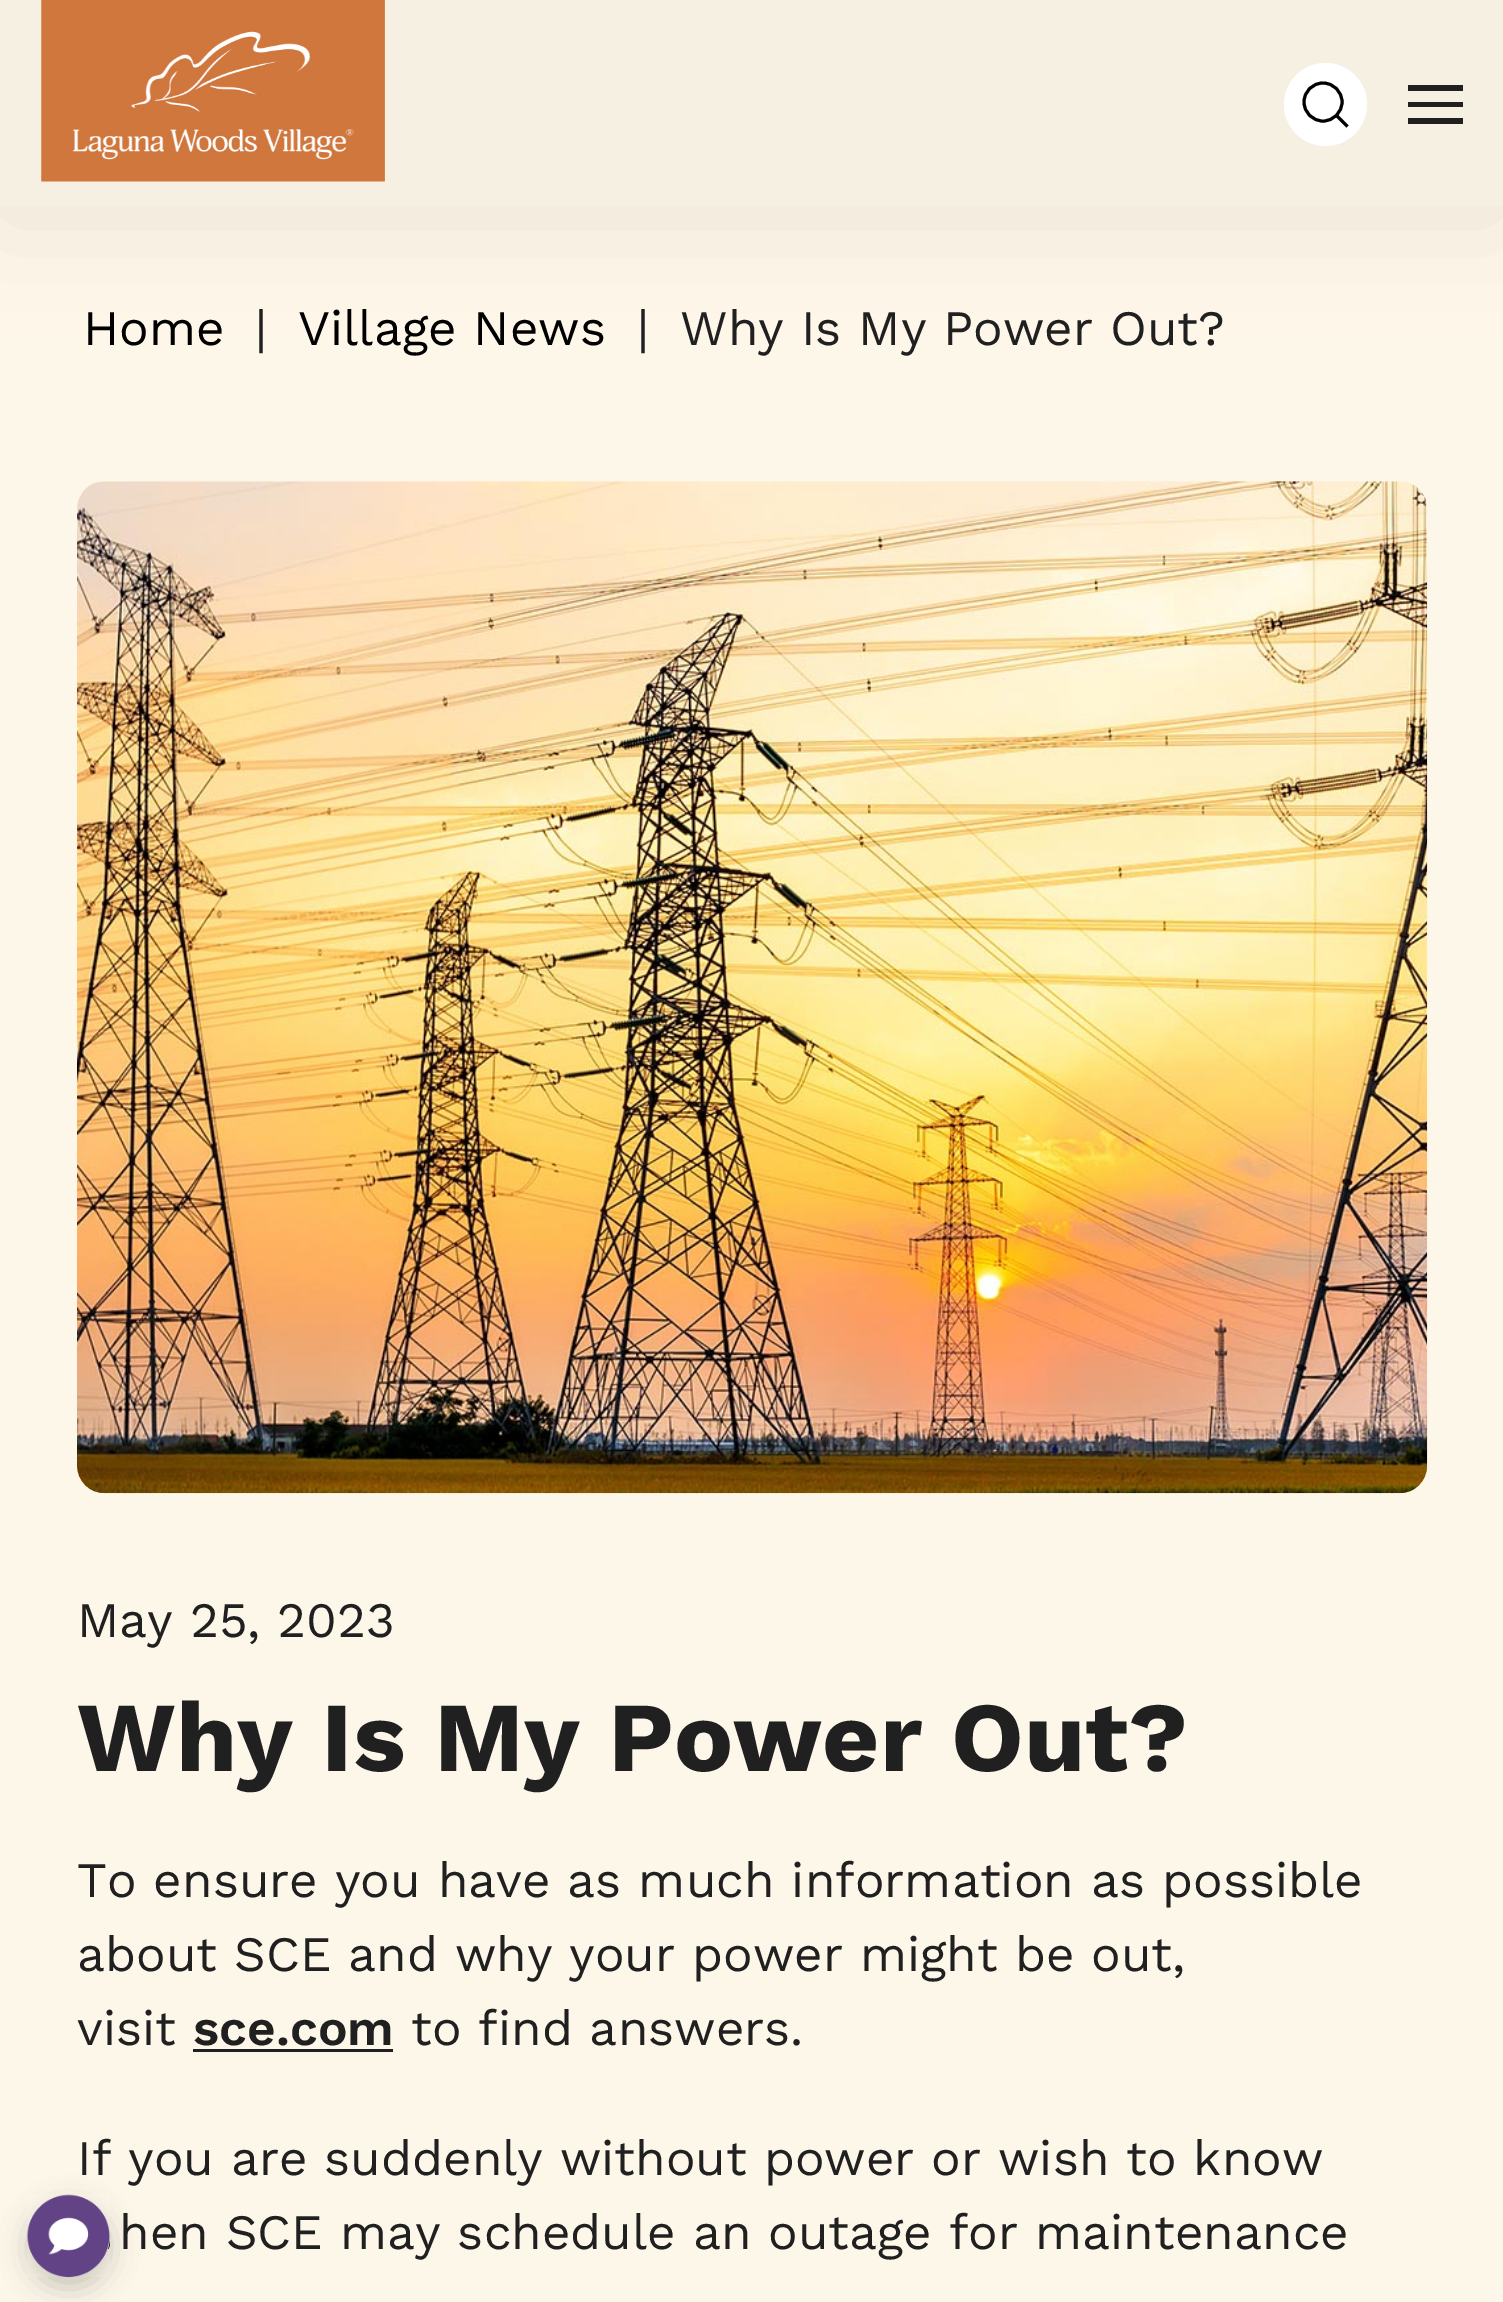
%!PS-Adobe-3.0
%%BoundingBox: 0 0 1503 2302
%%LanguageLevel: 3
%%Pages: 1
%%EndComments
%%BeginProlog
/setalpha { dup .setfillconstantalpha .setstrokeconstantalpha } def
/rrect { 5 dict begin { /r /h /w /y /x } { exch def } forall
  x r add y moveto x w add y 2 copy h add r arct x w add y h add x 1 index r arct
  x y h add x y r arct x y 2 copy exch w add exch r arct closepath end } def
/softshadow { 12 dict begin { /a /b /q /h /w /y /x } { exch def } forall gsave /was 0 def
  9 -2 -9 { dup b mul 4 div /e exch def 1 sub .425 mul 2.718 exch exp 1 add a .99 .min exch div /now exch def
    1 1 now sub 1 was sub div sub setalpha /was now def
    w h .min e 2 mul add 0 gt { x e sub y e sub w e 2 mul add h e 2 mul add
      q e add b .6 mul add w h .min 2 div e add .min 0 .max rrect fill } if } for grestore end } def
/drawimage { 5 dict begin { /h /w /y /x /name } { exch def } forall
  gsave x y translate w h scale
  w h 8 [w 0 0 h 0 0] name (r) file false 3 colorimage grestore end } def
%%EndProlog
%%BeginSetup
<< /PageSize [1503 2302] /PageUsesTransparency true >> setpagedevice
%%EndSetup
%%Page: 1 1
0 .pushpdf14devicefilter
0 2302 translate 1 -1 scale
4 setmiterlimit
0.992 0.969 0.918 setrgbcolor
0 0 1503 2302 rectfill
0 setgray
28 2206 82 82 41 14 0.2 softshadow
0.937 setgray
newpath 69 2236 41 0 360 arc closepath fill
(images/1.raw) 27 2194 83 83 drawimage
0.522 0.467 0.38 setrgbcolor
0 11 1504 206 0 55 0.15 softshadow
0.961 0.941 0.882 setrgbcolor
0 0 1503 206 rectfill
(images/2.raw) 41 0 344 182 drawimage
1 setgray
newpath 1325.5 104.5 41.5 0 360 arc closepath fill
0 setgray
3 setlinewidth
newpath 1323 102 19 0 360 arc closepath stroke
newpath 1336.5 115.5 moveto 1347.5 126.5 lineto closepath stroke
0.125 setgray
1408 85 55 6 rectfill
1408 102 55 5 rectfill
1408 118 55 6 rectfill
(images/3.raw) 77 481 1351 1013 drawimage
193 2049 200 3 rectfill
/WorkSans-Regular [49.5 0 0 -49.5 0 0] selectfont
0 setgray
83 345 moveto (Home) show
0.125 setgray
255 345 moveto (|) show
0 setgray
298 345 moveto (Village News) show
0.125 setgray
637 345 moveto (|) show
680 345 moveto (Why Is My Power Out?) show
77 1637 moveto (May 25, 2023) show
/WorkSans-Bold [99 0 0 -99 0 0] selectfont
77 1771 moveto (Why Is My Power Out?) show
/WorkSans-Regular [49.5 0 0 -49.5 0 0] selectfont
77 1897 moveto (To ensure you have as much information as possible) show
77 1971 moveto (about SCE and why your power might be out,) show
77 2045 moveto (visit) show
/WorkSans-SemiBold [49.5 0 0 -49.5 0 0] selectfont
193 2045 moveto (sce.com) show
/WorkSans-Regular [49.5 0 0 -49.5 0 0] selectfont
411 2045 moveto (to find answers.) show
77 2175 moveto (If you are suddenly without power or wish to know) show
119 2249 moveto (hen SCE may schedule an outage for maintenance) show
.poppdf14devicefilter showpage
%%EOF
